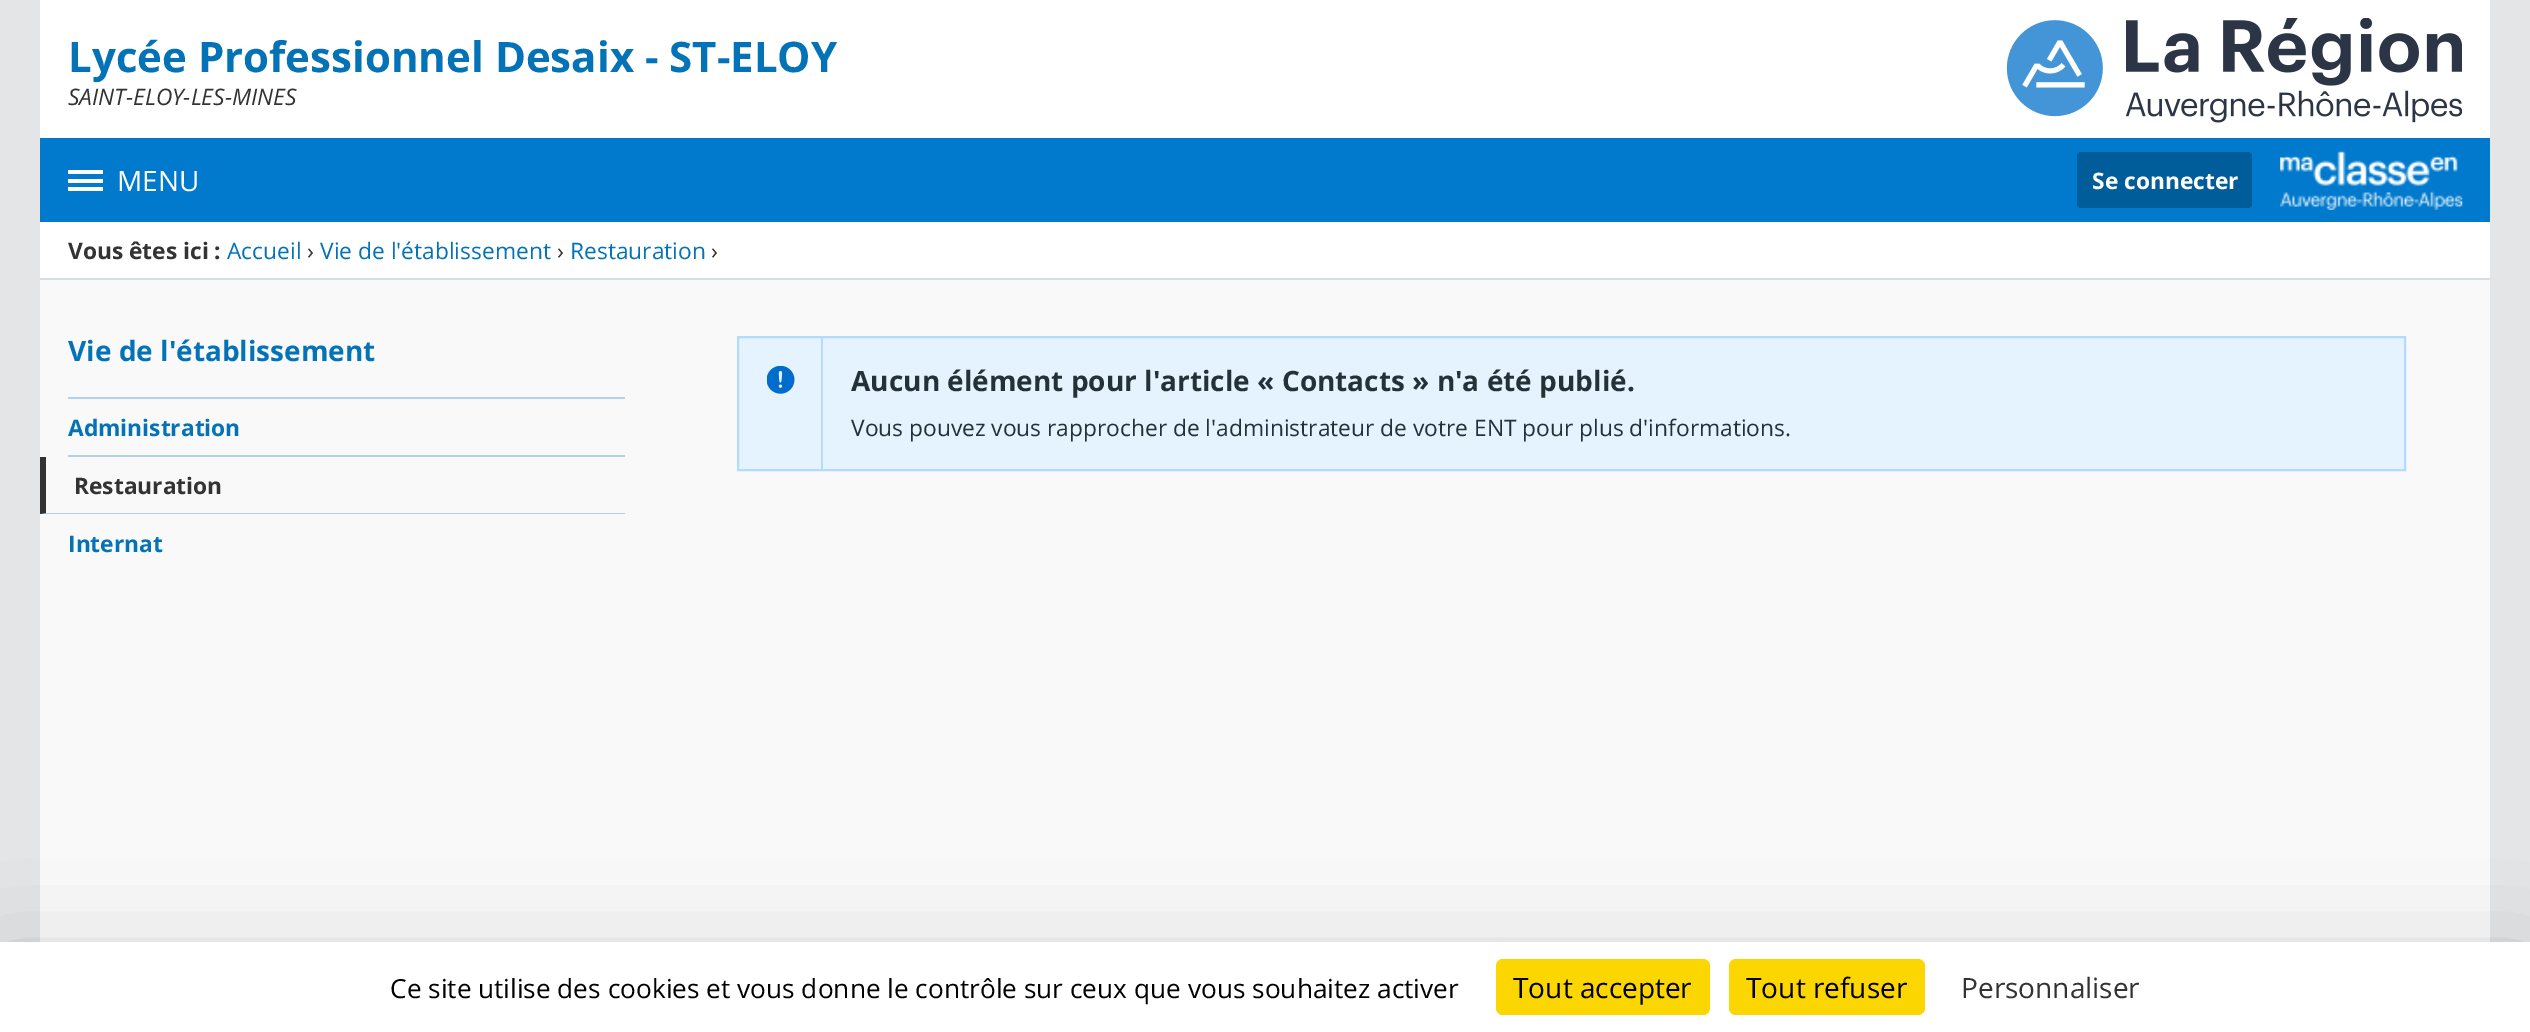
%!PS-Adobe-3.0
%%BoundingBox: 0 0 2530 1032
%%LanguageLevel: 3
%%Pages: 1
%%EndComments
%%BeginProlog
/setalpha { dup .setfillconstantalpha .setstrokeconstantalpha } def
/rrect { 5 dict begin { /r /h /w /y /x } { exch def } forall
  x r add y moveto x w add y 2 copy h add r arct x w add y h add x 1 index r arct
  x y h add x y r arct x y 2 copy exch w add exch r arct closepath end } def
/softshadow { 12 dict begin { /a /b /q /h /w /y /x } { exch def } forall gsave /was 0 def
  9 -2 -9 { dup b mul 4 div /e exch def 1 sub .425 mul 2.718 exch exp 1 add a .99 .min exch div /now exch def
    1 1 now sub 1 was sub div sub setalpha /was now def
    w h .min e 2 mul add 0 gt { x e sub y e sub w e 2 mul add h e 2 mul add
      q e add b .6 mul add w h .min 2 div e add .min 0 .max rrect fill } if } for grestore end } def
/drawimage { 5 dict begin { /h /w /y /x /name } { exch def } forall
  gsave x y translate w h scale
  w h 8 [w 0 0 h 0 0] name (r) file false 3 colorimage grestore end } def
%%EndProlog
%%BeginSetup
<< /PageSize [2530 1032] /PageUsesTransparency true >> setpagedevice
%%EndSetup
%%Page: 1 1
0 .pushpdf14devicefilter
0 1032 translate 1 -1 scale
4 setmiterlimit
0.894 0.898 0.906 setrgbcolor
0 0 2530 1032 rectfill
1 setgray
40 0 2450 278 rectfill
(images/1.raw) 2006 18 456 105 drawimage
0.004 0.478 0.804 setrgbcolor
40 138 2450 84 rectfill
(images/2.raw) 2280 150 183 60 drawimage
1 setgray
68 170 35 4 rectfill
68 179 35 4 rectfill
68 187 35 4 rectfill
0.004 0.361 0.604 setrgbcolor
2077 152 175 56 4 rrect fill
0.843 0.871 0.886 setrgbcolor
40 278 2450 2 rectfill
0.976 setgray
40 280 2450 662 rectfill
0.686 0.827 0.925 setrgbcolor
68 397 557 2 rectfill
68 455 557 2 rectfill
newpath 625 514 moveto 40 514 lineto 46 513 lineto 625 513 lineto closepath fill
0.2 setgray
newpath 40 514 moveto 40 457 lineto 46 457 lineto 46 513 lineto closepath fill
0.898 0.953 1 setrgbcolor
newpath 738 337 moveto 2405 337 lineto 2405 470 lineto 738 470 lineto closepath gsave fill grestore
0.702 0.859 1 setrgbcolor
2 setlinewidth
stroke
(images/3.raw) 767 366 28 28 drawimage
821 338 2 131 rectfill
0 setgray
0 977 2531 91 0 52.5 0.25 softshadow
1 setgray
0 942 2530 90 rectfill
0.984 0.839 0 setrgbcolor
1496 959 214 56 7 rrect fill
1729 959 196 56 7 rrect fill
/OpenSans-Bold [42 0 0 -42 0 0] selectfont
0.012 0.447 0.718 setrgbcolor
68 72 moveto (Lycée Professionnel Desaix - ST-ELOY) show
/OpenSans-Italic [22.75 0 0 -22.75 0 0] selectfont
0.2 setgray
68 105 moveto (SAINT-ELOY-LES-MINES) show
/OpenSans-Regular [28 0 0 -28 0 0] selectfont
1 setgray
117 191 moveto (MENU) show
/OpenSans-Bold [22.75 0 0 -22.75 0 0] selectfont
2092 189 moveto (Se connecter) show
0.2 setgray
68 259 moveto (Vous êtes ici :) show
/OpenSans-Regular [22.75 0 0 -22.75 0 0] selectfont
0.012 0.447 0.718 setrgbcolor
227 259 moveto (Accueil) show
0.2 setgray
307 259 moveto (›) show
0.012 0.447 0.718 setrgbcolor
320 259 moveto (Vie de l'établissement) show
0.2 setgray
557 259 moveto (›) show
0.012 0.447 0.718 setrgbcolor
570 259 moveto (Restauration) show
0.2 setgray
711 259 moveto (›) show
/OpenSans-Bold [28 0 0 -28 0 0] selectfont
0.012 0.447 0.718 setrgbcolor
68 361 moveto (Vie de l'établissement) show
/OpenSans-Bold [22.75 0 0 -22.75 0 0] selectfont
68 436 moveto (Administration) show
0.2 setgray
74 494 moveto (Restauration) show
0.012 0.447 0.718 setrgbcolor
68 552 moveto (Internat) show
/OpenSans-Bold [28 0 0 -28 0 0] selectfont
0.141 0.196 0.22 setrgbcolor
851 391 moveto (Aucun élément pour l'article « Contacts » n'a été publié.) show
/OpenSans-Regular [22.75 0 0 -22.75 0 0] selectfont
851 436 moveto (Vous pouvez vous rapprocher de l'administrateur de votre ENT pour plus d'informations.) show
/OpenSans-Regular [26.25 0 0 -26.25 0 0] selectfont
0 setgray
390 998 moveto (Ce site utilise des cookies et vous donne le contrôle sur ceux que vous souhaitez activer) show
/OpenSans-Regular [28 0 0 -28 0 0] selectfont
1513 998 moveto (Tout accepter) show
1746 998 moveto (Tout refuser) show
0.2 setgray
1961 998 moveto (Personnaliser) show
.poppdf14devicefilter showpage
%%EOF
